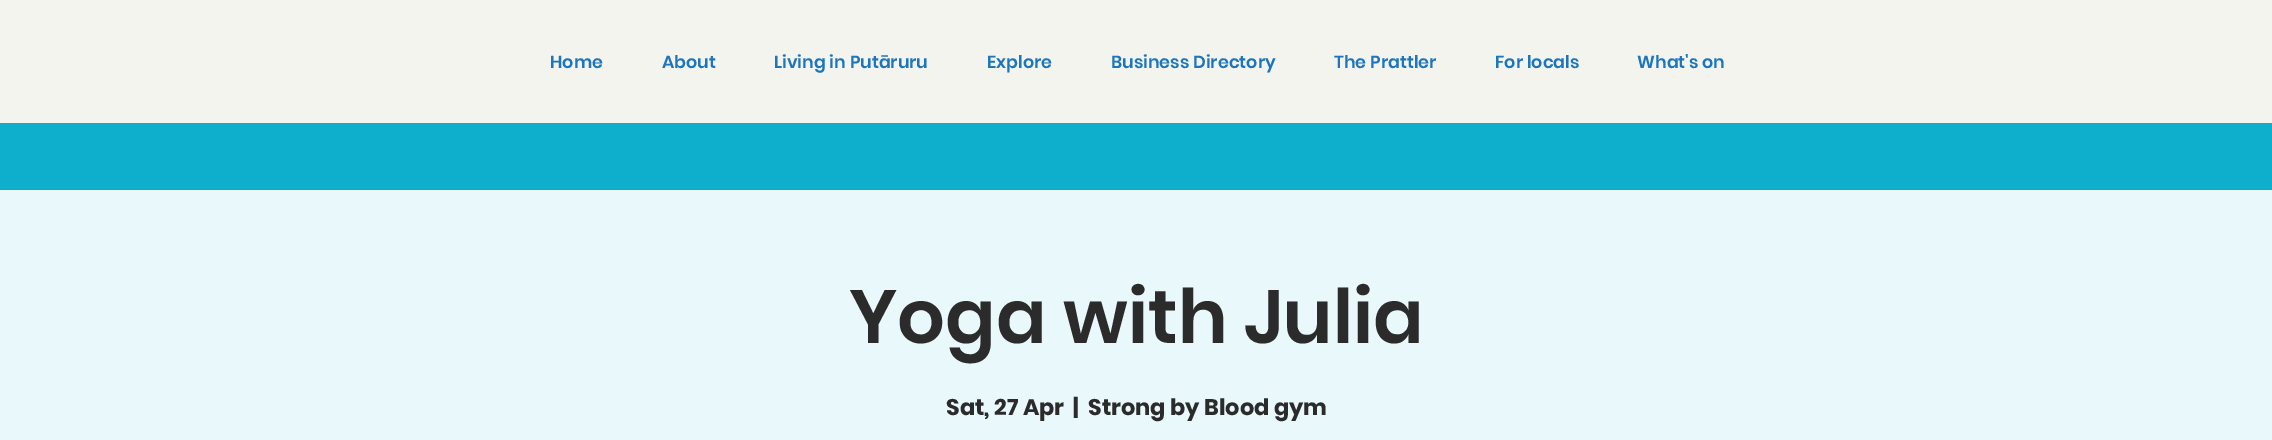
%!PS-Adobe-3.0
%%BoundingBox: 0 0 2272 440
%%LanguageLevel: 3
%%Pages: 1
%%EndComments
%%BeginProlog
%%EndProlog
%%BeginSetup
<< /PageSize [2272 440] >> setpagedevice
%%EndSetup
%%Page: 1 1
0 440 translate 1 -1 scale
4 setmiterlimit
0.055 0.686 0.8 setrgbcolor
0 0 2272 440 rectfill
0.953 0.957 0.933 setrgbcolor
0 0 2272 123 rectfill
0.91 0.973 0.984 setrgbcolor
0 190 2272 250 rectfill
/Poppins-SemiBold [17.5 0 0 -17.5 0 0] selectfont
0.11 0.459 0.741 setrgbcolor
550 68 moveto (Home) show
662 68 moveto (About) show
774 68 moveto (Living in Putāruru) show
987 68 moveto (Explore) show
1111 68 moveto (Business Directory) show
1334 68 moveto (The Prattler) show
1495 68 moveto (For locals) show
1637 68 moveto (What's on) show
/Poppins-SemiBold [75 0 0 -75 0 0] selectfont
0.169 setgray
849 343 moveto (Yoga with Julia) show
/Poppins-Bold [22.5 0 0 -22.5 0 0] selectfont
946 415 moveto (Sat, 27 Apr) show
1073 415 moveto (|) show
1088 415 moveto (Strong by Blood gym) show
showpage
%%EOF
